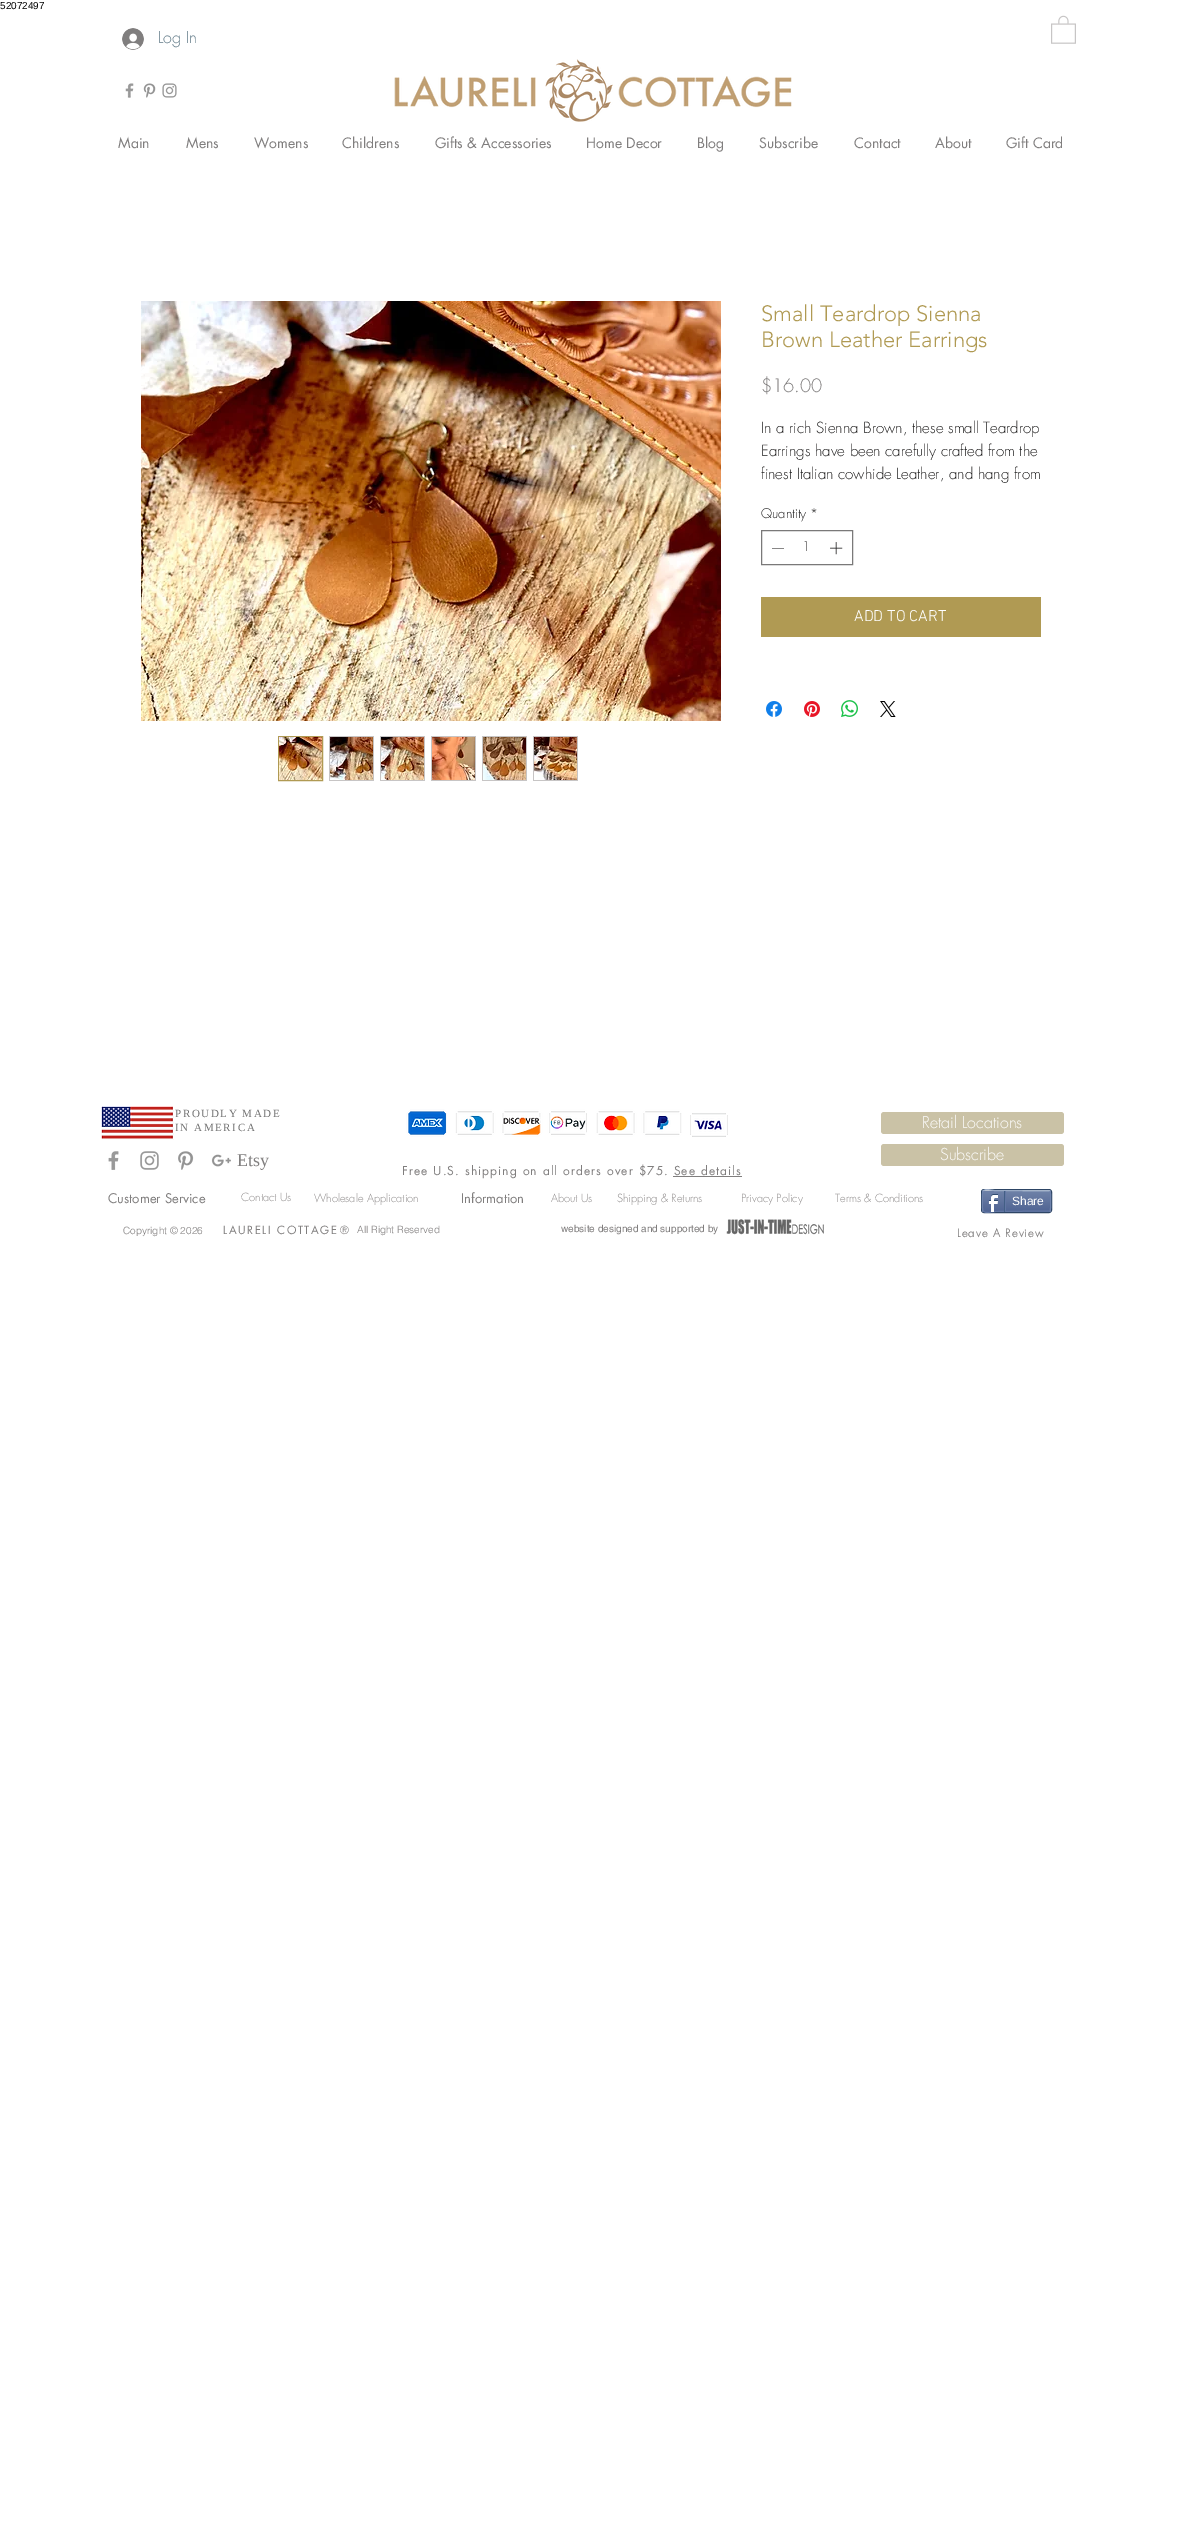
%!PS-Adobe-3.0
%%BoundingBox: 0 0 1181 2530
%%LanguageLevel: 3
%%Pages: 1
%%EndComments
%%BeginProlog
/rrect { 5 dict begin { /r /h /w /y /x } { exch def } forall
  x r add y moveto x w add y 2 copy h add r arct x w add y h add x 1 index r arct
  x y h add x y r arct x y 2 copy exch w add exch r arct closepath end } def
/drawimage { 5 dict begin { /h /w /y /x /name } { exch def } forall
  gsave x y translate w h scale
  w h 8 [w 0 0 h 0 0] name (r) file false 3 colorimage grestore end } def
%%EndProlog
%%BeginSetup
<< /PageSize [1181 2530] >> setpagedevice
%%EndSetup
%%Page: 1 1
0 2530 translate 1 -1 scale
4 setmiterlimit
1 setgray
0 0 1181 2530 rectfill
(images/1.raw) 122 28 22 22 drawimage
(images/2.raw) 1051 15 25 29 drawimage
(images/3.raw) 125 83 9 15 drawimage
(images/4.raw) 143 83 13 15 drawimage
(images/5.raw) 162 83 15 15 drawimage
(images/6.raw) 394 76 142 32 drawimage
(images/7.raw) 545 59 68 63 drawimage
(images/8.raw) 618 76 174 32 drawimage
(images/9.raw) 141 301 580 420 drawimage
0.69 0.604 0.325 setrgbcolor
278.5 736.5 44 44 rectstroke
(images/10.raw) 279 737 43 43 drawimage
0.78 0.773 0.773 setrgbcolor
329 736 45 45 rectfill
(images/11.raw) 330 737 43 43 drawimage
380 736 45 45 rectfill
(images/12.raw) 381 737 43 43 drawimage
431 736 45 45 rectfill
(images/13.raw) 432 737 43 43 drawimage
482 736 45 45 rectfill
(images/14.raw) 483 737 43 43 drawimage
533 736 45 45 rectfill
(images/15.raw) 534 737 43 43 drawimage
0.478 0.475 0.475 setrgbcolor
761.5 530.5 91 34 rectstroke
0.129 0.125 0.125 setrgbcolor
newpath 784 548 moveto 784 548.5 lineto 772 548.5 lineto 772 548 lineto closepath eofill
(images/16.raw) 830 542 13 13 drawimage
0.69 0.604 0.325 setrgbcolor
761 597 280 40 rectfill
(images/17.raw) 766 701 16 16 drawimage
(images/18.raw) 804 701 16 16 drawimage
(images/19.raw) 841 700 17 17 drawimage
(images/20.raw) 880 701 16 16 drawimage
(images/21.raw) 101 1106 73 34 drawimage
(images/22.raw) 406 1109 276 28 drawimage
(images/23.raw) 690 1113 38 24 drawimage
0.792 0.761 0.651 setrgbcolor
881 1112 183 22 3 rrect fill
(images/24.raw) 108 1151 11 19 drawimage
(images/25.raw) 140 1151 19 19 drawimage
(images/26.raw) 178 1151 16 19 drawimage
(images/27.raw) 211 1154 20 13 drawimage
881 1144 183 22 3 rrect fill
0.502 0.494 0.494 setrgbcolor
673 1176 69 1 rectfill
0.176 0.271 0.396 setrgbcolor
981.5 1189.5 70 23 2.5 rrect stroke
(images/28.raw) 982 1191 69 21 drawimage
0.604 0.671 0.776 setrgbcolor
newpath 983 1191 moveto 986 1188 991 1190.5 995 1190.5 curveto 1050 1191 lineto stroke
0.435 0.514 0.678 setrgbcolor
newpath 1050 1191 moveto 1051 1191.5 1051 1210.5 1050 1211 curveto stroke
0.38 0.463 0.639 setrgbcolor
newpath 1050 1211 moveto 995 1211.5 lineto 991 1211.5 986 1214 983 1211 curveto stroke
0.435 0.514 0.678 setrgbcolor
newpath 983 1211 moveto 982 1210.5 982 1191.5 983 1191 curveto stroke
(images/29.raw) 988 1194 10 18 drawimage
0.259 0.369 0.522 setrgbcolor
1004 1191 1 21 rectfill
0.38 0.463 0.639 setrgbcolor
1005 1191 1 20 rectfill
(images/30.raw) 726 1219 98 16 drawimage
/LiberationSans-Regular [10 0 0 -10 0 0] selectfont
0 setgray
0 9 moveto (52072497) show
/futura-Light [16 0 0 -16 0 0] selectfont
0.365 0.467 0.522 setrgbcolor
158 43 moveto (Log In) show
/futura-Regular [14 0 0 -14 0 0] selectfont
0.502 0.494 0.494 setrgbcolor
118 148 moveto (Main) show
186 148 moveto (Mens) show
254 148 moveto (Womens) show
342 148 moveto (Childrens) show
435 148 moveto (Gifts & Accessories) show
586 148 moveto (Home Decor) show
697 148 moveto (Blog) show
759 148 moveto (Subscribe) show
854 148 moveto (Contact) show
935 148 moveto (About) show
1006 148 moveto (Gift Card) show
/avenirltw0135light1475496-Light [22 0 0 -22 0 0] selectfont
0.69 0.604 0.325 setrgbcolor
761 321 moveto (Small Teardrop Sienna) show
761 347 moveto (Brown Leather Earrings) show
/futura-Light [18 0 0 -18 0 0] selectfont
0.502 0.494 0.494 setrgbcolor
761 392 moveto ($16.00) show
/futura-Light [15 0 0 -15 0 0] selectfont
0.129 0.125 0.125 setrgbcolor
761 433 moveto (In a rich Sienna Brown, these small Teardrop) show
761 456 moveto (Earrings have been carefully crafted from the) show
761 479 moveto (finest Italian cowhide Leather, and hang from) show
/futura-Light [13 0 0 -13 0 0] selectfont
761 518 moveto (Quantity *) show
802 551 moveto (1) show
/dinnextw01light-Light [16 0 0 -16 0 0] selectfont
1 setgray
854 621 moveto (ADD TO CART) show
/LiberationSerif-Regular [11 0 0 -11 0 0] selectfont
0.447 setgray
175 1117 moveto 1.6 0 (PROUDLY MADE) ashow
175 1131 moveto 1.6 0 (IN AMERICA) ashow
/futura-Light [16 0 0 -16 0 0] selectfont
1 setgray
922 1128 moveto (Retail Locations) show
/LiberationSerif-Regular [18 0 0 -18 0 0] selectfont
0.502 0.494 0.494 setrgbcolor
237 1166 moveto (Etsy) show
/futura-Light [16 0 0 -16 0 0] selectfont
1 setgray
940 1160 moveto (Subscribe) show
/futura-Regular [12 0 0 -12 0 0] selectfont
0.502 0.494 0.494 setrgbcolor
402 1175 moveto 1.08 0 (Free U.S. shipping on all orders over $75. See details) ashow
/futura-Regular [13 0 0 -13 0 0] selectfont
108 1203 moveto (Customer Service) show
/futura-Light [11 0 0 -11 0 0] selectfont
0.561 0.549 0.549 setrgbcolor
241 1201 moveto (Contact Us) show
314 1202 moveto (Wholesale Application) show
/futura-Regular [13 0 0 -13 0 0] selectfont
0.502 0.494 0.494 setrgbcolor
461 1203 moveto (Information) show
/futura-Light [11 0 0 -11 0 0] selectfont
0.561 0.549 0.549 setrgbcolor
551 1202 moveto (About Us) show
617 1202 moveto (Shipping & Returns) show
741 1202 moveto (Privacy Policy) show
835 1202 moveto (Terms & Conditions) show
/LiberationSans-Regular [12 0 0 -12 0 0] selectfont
1 setgray
1012 1205 moveto (Share) show
/helvetica-Light [10 0 0 -10 0 0] selectfont
0.502 0.494 0.494 setrgbcolor
123 1234 moveto (Copyright © 2026) show
/futura-Regular [11 0 0 -11 0 0] selectfont
223 1234 moveto 1.6 0 (LAURELI COTTAGE) ashow
/futura-Light [11 0 0 -11 0 0] selectfont
340 1234 moveto (®) show
/helvetica-Light [10 0 0 -10 0 0] selectfont
357 1233 moveto (All Right Reserved) show
/helvetica-Regular [10 0 0 -10 0 0] selectfont
561 1232 moveto (website designed and supported by) show
/futura-Bold [11 0 0 -11 0 0] selectfont
957 1237 moveto 1.1 0 (Leave A Review) ashow
showpage
%%EOF
